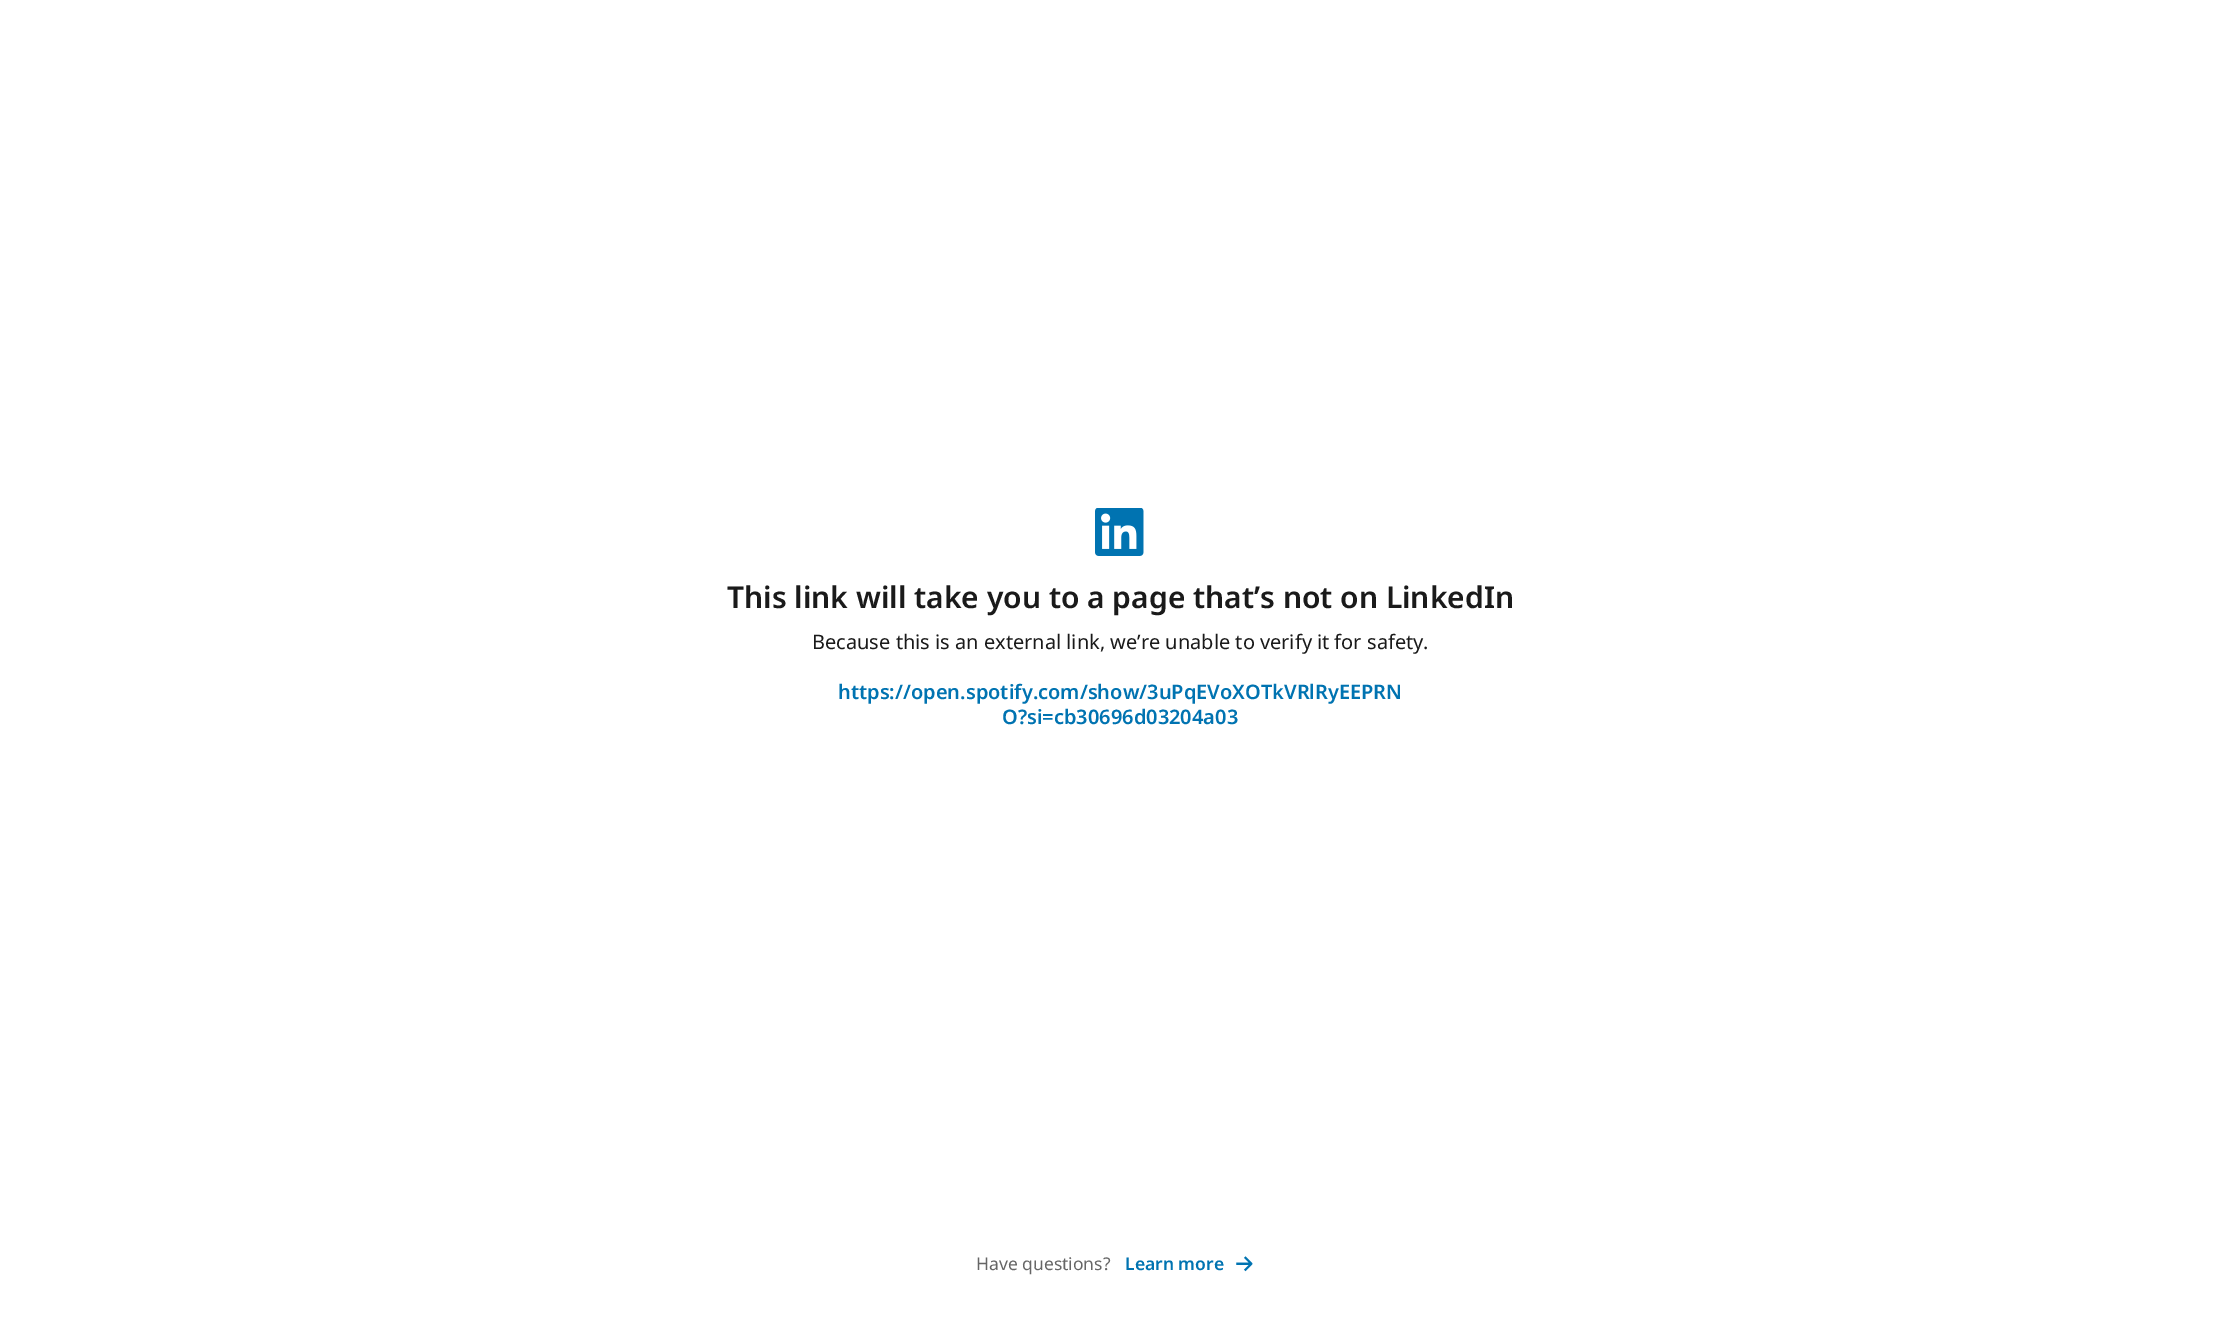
%!PS-Adobe-3.0
%%BoundingBox: 0 0 2239 1318
%%LanguageLevel: 3
%%Pages: 1
%%EndComments
%%BeginProlog
/drawimage { 5 dict begin { /h /w /y /x /name } { exch def } forall
  gsave x y translate w h scale
  w h 8 [w 0 0 h 0 0] name (r) file false 3 colorimage grestore end } def
%%EndProlog
%%BeginSetup
<< /PageSize [2239 1318] >> setpagedevice
%%EndSetup
%%Page: 1 1
0 1318 translate 1 -1 scale
4 setmiterlimit
1 setgray
0 0 2239 1318 rectfill
(images/1.raw) 1095 508 49 48 drawimage
(images/2.raw) 1236 1256 17 16 drawimage
/NotoSans-SemiBold [30 0 0 -30 0 0] selectfont
0.102 setgray
727 608 moveto (This link will take you to a page that’s not on LinkedIn) show
/NotoSans-Regular [20 0 0 -20 0 0] selectfont
812 649 moveto (Because this is an external link, we’re unable to verify it for safety.) show
/NotoSans-SemiBold [20 0 0 -20 0 0] selectfont
0 0.451 0.694 setrgbcolor
838 699 moveto (https://open.spotify.com/show/3uPqEVoXOTkVRlRyEEPRN) show
1002 724 moveto (O?si=cb30696d03204a03) show
/NotoSans-Regular [17.5 0 0 -17.5 0 0] selectfont
0.4 setgray
976 1270 moveto (Have questions?) show
/NotoSans-SemiBold [17.5 0 0 -17.5 0 0] selectfont
0 0.451 0.694 setrgbcolor
1125 1270 moveto (Learn more) show
showpage
%%EOF
